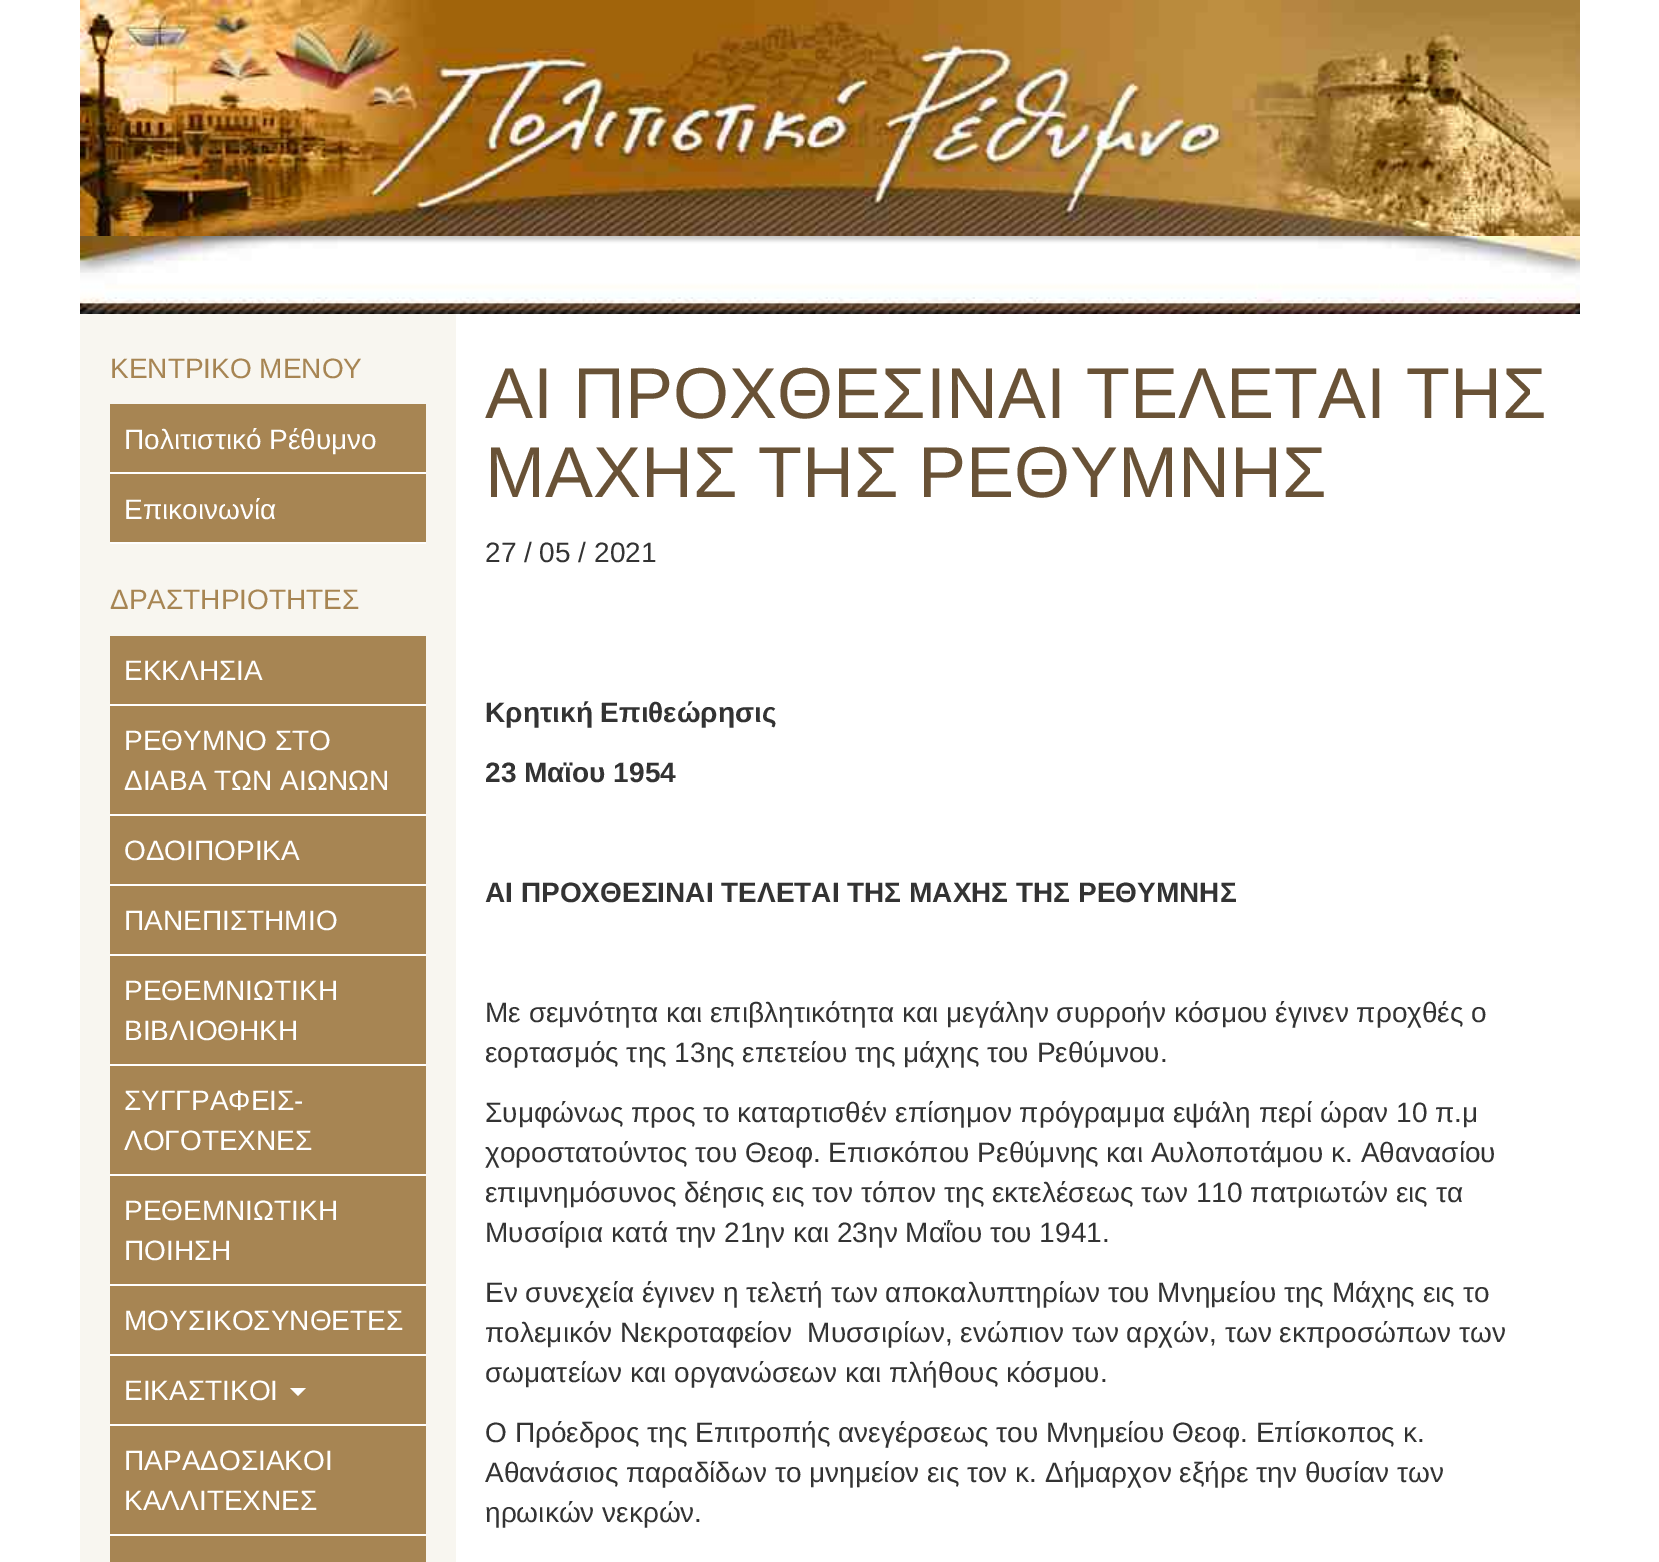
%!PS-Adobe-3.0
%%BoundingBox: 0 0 1659 1562
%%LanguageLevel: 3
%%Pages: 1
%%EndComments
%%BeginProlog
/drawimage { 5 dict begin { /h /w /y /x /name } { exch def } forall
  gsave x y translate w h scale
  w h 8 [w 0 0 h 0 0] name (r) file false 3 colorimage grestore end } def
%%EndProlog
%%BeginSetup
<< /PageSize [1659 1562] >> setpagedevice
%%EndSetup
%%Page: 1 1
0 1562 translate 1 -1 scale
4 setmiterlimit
1 setgray
0 0 1659 1562 rectfill
(images/1.raw) 80 0 1500 236 drawimage
(images/2.raw) 80 236 1500 78 drawimage
0.973 0.965 0.941 setrgbcolor
80 314 376 1248 rectfill
0.655 0.522 0.325 setrgbcolor
110 404 316 68 rectfill
1 setgray
110 472 316 2 rectfill
0.655 0.522 0.325 setrgbcolor
110 474 316 68 rectfill
1 setgray
110 542 316 2 rectfill
0.655 0.522 0.325 setrgbcolor
110 636 316 68 rectfill
1 setgray
110 704 316 2 rectfill
0.655 0.522 0.325 setrgbcolor
110 706 316 108 rectfill
1 setgray
110 814 316 2 rectfill
0.655 0.522 0.325 setrgbcolor
110 816 316 68 rectfill
1 setgray
110 884 316 2 rectfill
0.655 0.522 0.325 setrgbcolor
110 886 316 68 rectfill
1 setgray
110 954 316 2 rectfill
0.655 0.522 0.325 setrgbcolor
110 956 316 108 rectfill
1 setgray
110 1064 316 2 rectfill
0.655 0.522 0.325 setrgbcolor
110 1066 316 108 rectfill
1 setgray
110 1174 316 2 rectfill
0.655 0.522 0.325 setrgbcolor
110 1176 316 108 rectfill
1 setgray
110 1284 316 2 rectfill
0.655 0.522 0.325 setrgbcolor
110 1286 316 68 rectfill
1 setgray
110 1354 316 2 rectfill
0.655 0.522 0.325 setrgbcolor
110 1356 316 68 rectfill
1 setgray
110 1424 316 2 rectfill
newpath 290 1388 moveto 306 1388 lineto 298 1396 lineto closepath fill
0.655 0.522 0.325 setrgbcolor
110 1426 316 108 rectfill
1 setgray
110 1534 316 2 rectfill
0.655 0.522 0.325 setrgbcolor
110 1536 316 26 rectfill
/LiberationSans-Regular [28 0 0 -28 0 0] selectfont
110 378 moveto (ΚΕΝΤΡΙΚΟ ΜΕΝΟΥ) show
1 setgray
124 449 moveto (Πολιτιστικό Ρέθυμνο) show
124 519 moveto (Επικοινωνία) show
0.655 0.522 0.325 setrgbcolor
110 609 moveto (ΔΡΑΣΤΗΡΙΟΤΗΤΕΣ) show
1 setgray
124 680 moveto (ΕΚΚΛΗΣΙΑ) show
124 750 moveto (ΡΕΘΥΜΝΟ ΣΤΟ) show
124 790 moveto (ΔΙΑΒΑ ΤΩΝ ΑΙΩΝΩΝ) show
124 860 moveto (ΟΔΟΙΠΟΡΙΚΑ) show
124 930 moveto (ΠΑΝΕΠΙΣΤΗΜΙΟ) show
124 1000 moveto (ΡΕΘΕΜΝΙΩΤΙΚΗ) show
124 1040 moveto (ΒΙΒΛΙΟΘΗΚΗ) show
124 1110 moveto (ΣΥΓΓΡΑΦΕΙΣ-) show
124 1150 moveto (ΛΟΓΟΤΕΧΝΕΣ) show
124 1220 moveto (ΡΕΘΕΜΝΙΩΤΙΚΗ) show
124 1260 moveto (ΠΟΙΗΣΗ) show
124 1330 moveto (ΜΟΥΣΙΚΟΣΥΝΘΕΤΕΣ) show
124 1400 moveto (ΕΙΚΑΣΤΙΚΟΙ) show
124 1470 moveto (ΠΑΡΑΔΟΣΙΑΚΟΙ) show
124 1510 moveto (ΚΑΛΛΙΤΕΧΝΕΣ) show
/LiberationSans-Regular [72 0 0 -72 0 0] selectfont
0.412 0.322 0.212 setrgbcolor
485 418 moveto (ΑΙ ΠΡΟΧΘΕΣΙΝΑΙ ΤΕΛΕΤΑΙ ΤΗΣ) show
485 497 moveto (ΜΑΧΗΣ ΤΗΣ ΡΕΘΥΜΝΗΣ) show
/LiberationSans-Regular [28 0 0 -28 0 0] selectfont
0.2 setgray
485 562 moveto (27 / 05 / 2021) show
/LiberationSans-Bold [28 0 0 -28 0 0] selectfont
485 722 moveto (Κρητική Επιθεώρησις) show
485 782 moveto (23 Μαϊου 1954) show
485 902 moveto (ΑΙ ΠΡΟΧΘΕΣΙΝΑΙ ΤΕΛΕΤΑΙ ΤΗΣ ΜΑΧΗΣ ΤΗΣ ΡΕΘΥΜΝΗΣ) show
/LiberationSans-Regular [28 0 0 -28 0 0] selectfont
485 1022 moveto (Με σεμνότητα και επιβλητικότητα και μεγάλην συρροήν κόσμου έγινεν προχθές ο) show
485 1062 moveto (εορτασμός της 13ης επετείου της μάχης του Ρεθύμνου.) show
485 1122 moveto (Συμφώνως προς το καταρτισθέν επίσημον πρόγραμμα εψάλη περί ώραν 10 π.μ) show
485 1162 moveto (χοροστατούντος του Θεοφ. Επισκόπου Ρεθύμνης και Αυλοποτάμου κ. Αθανασίου) show
485 1202 moveto (επιμνημόσυνος δέησις εις τον τόπον της εκτελέσεως των 110 πατριωτών εις τα) show
485 1242 moveto (Μυσσίρια κατά την 21ην και 23ην Μαΐου του 1941.) show
485 1302 moveto (Εν συνεχεία έγινεν η τελετή των αποκαλυπτηρίων του Μνημείου της Μάχης εις το) show
485 1342 moveto (πολεμικόν Νεκροταφείον  Μυσσιρίων, ενώπιον των αρχών, των εκπροσώπων των) show
485 1382 moveto (σωματείων και οργανώσεων και πλήθους κόσμου.) show
485 1442 moveto (Ο Πρόεδρος της Επιτροπής ανεγέρσεως του Μνημείου Θεοφ. Επίσκοπος κ.) show
485 1482 moveto (Αθανάσιος παραδίδων το μνημείον εις τον κ. Δήμαρχον εξήρε την θυσίαν των) show
485 1522 moveto (ηρωικών νεκρών.) show
showpage
%%EOF
